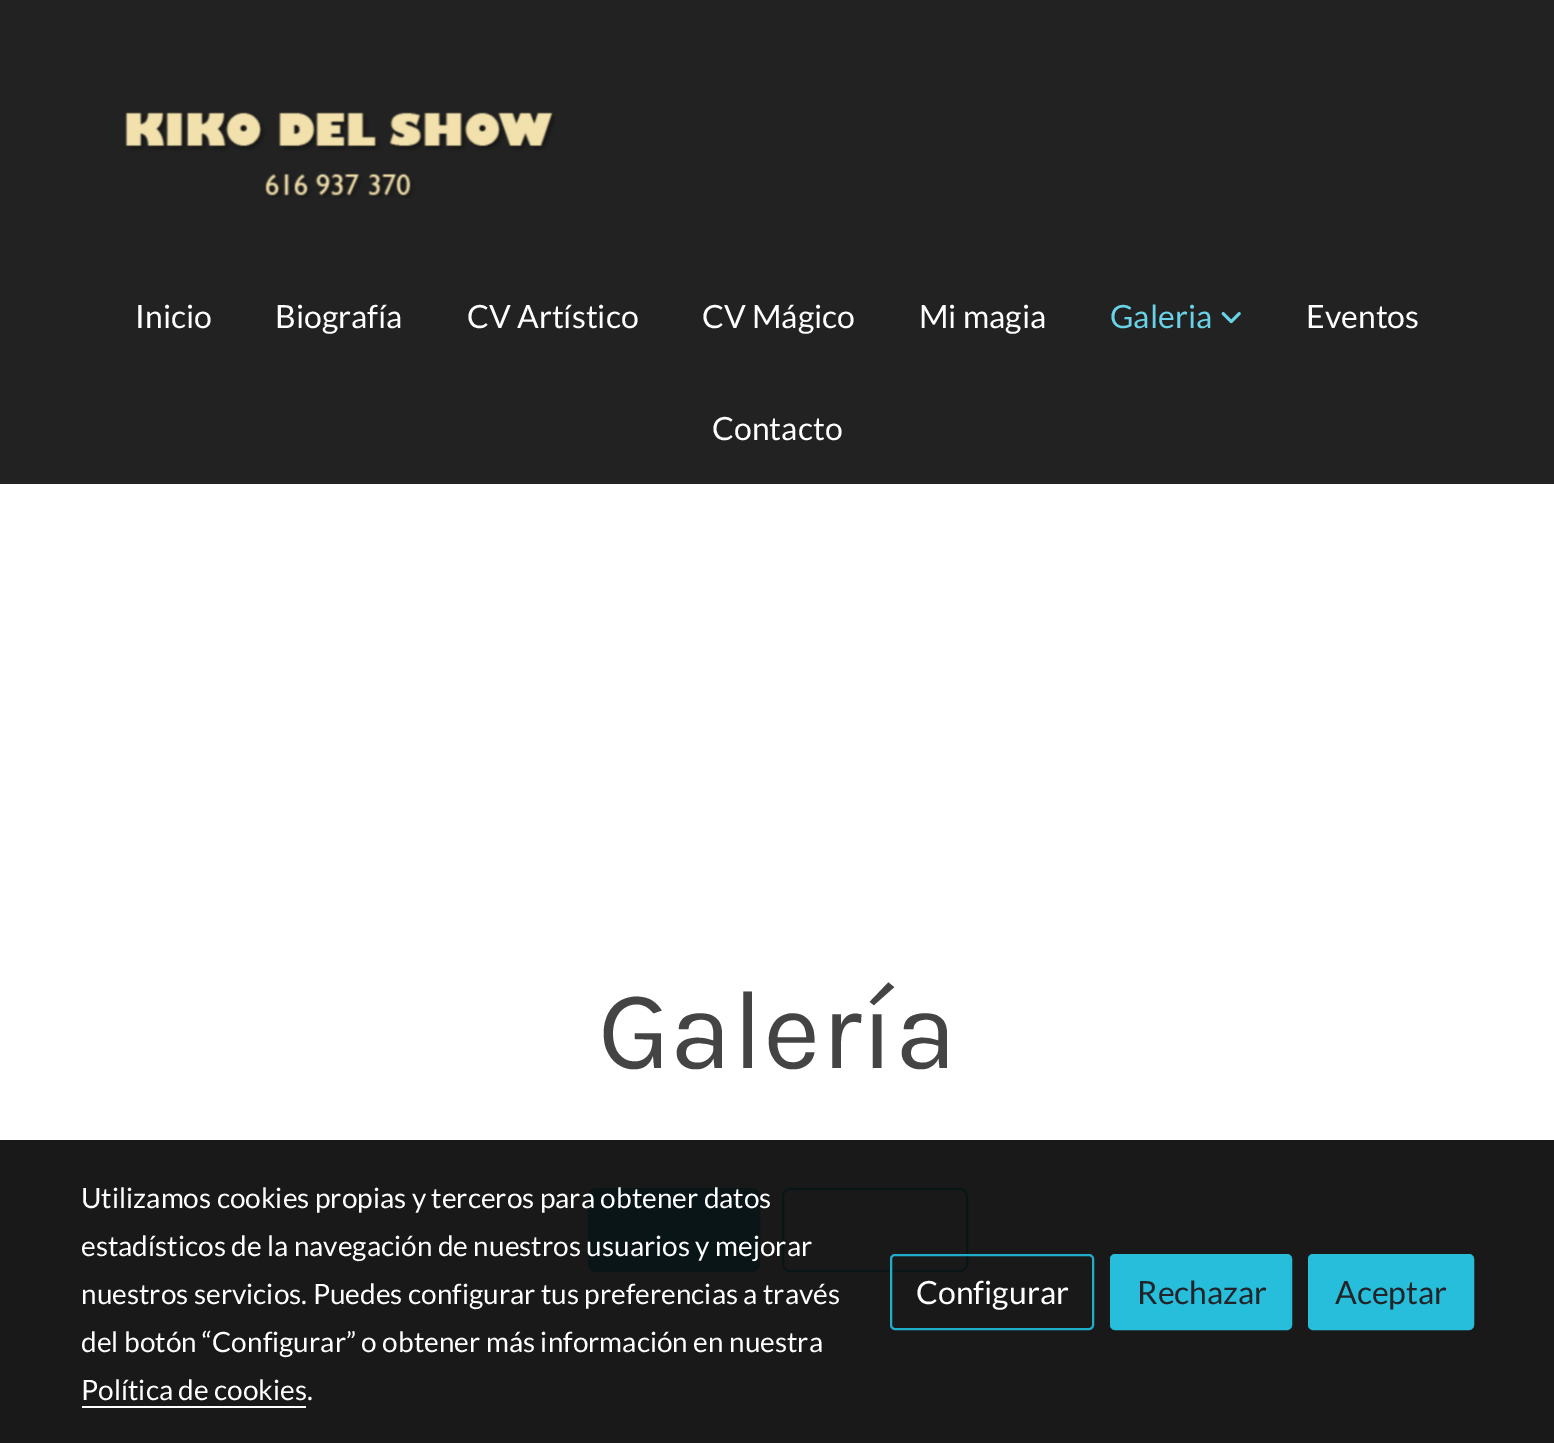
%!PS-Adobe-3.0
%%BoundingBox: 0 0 1554 1443
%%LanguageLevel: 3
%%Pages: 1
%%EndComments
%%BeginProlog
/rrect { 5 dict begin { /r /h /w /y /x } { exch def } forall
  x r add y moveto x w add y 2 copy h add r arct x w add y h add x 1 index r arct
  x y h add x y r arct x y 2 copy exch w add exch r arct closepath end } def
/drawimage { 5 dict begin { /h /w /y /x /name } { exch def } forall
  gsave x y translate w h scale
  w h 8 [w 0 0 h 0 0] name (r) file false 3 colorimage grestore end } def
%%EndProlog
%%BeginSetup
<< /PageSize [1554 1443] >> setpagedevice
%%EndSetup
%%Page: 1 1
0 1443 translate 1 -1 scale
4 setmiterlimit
1 setgray
0 0 1554 1443 rectfill
0.098 setgray
0 1140 1554 303 rectfill
0.133 setgray
0 0 1554 484 rectfill
(images/1.raw) 125 112 430 86 drawimage
(images/2.raw) 1221 312 20 12 drawimage
0.039 0.082 0.09 setrgbcolor
589 1189 170 82 7 rrect gsave fill grestore
2 setlinewidth
stroke
783 1189 184 82 7 rrect stroke
1 setgray
82 1406 224 2 rectfill
0.125 0.678 0.792 setrgbcolor
891 1255 202 74 4 rrect stroke
0.153 0.745 0.863 setrgbcolor
1111 1255 180 74 4 rrect gsave fill grestore
stroke
1309 1255 164 74 4 rrect gsave fill grestore
stroke
/Lato-Regular [32 0 0 -32 0 0] selectfont
1 setgray
135 328 moveto (Inicio) show
275 328 moveto (Biografía) show
467 328 moveto (CV Artístico) show
702 328 moveto (CV Mágico) show
919 328 moveto (Mi magia) show
0.412 0.824 0.906 setrgbcolor
1110 328 moveto (Galeria) show
1 setgray
1306 328 moveto (Eventos) show
712 440 moveto (Contacto) show
/Karla-Regular [112 0 0 -112 0 0] selectfont
0.267 setgray
598 1068 moveto (Galería) show
/Lato-Regular [28 0 0 -28 0 0] selectfont
1 setgray
81 1208 moveto (Utilizamos cookies propias y terceros para obtener datos) show
81 1256 moveto (estadísticos de la navegación de nuestros usuarios y mejorar) show
81 1304 moveto (nuestros servicios. Puedes configurar tus preferencias a través) show
81 1352 moveto (del botón “Configurar” o obtener más información en nuestra) show
81 1400 moveto (Política de cookies.) show
/Lato-Regular [32 0 0 -32 0 0] selectfont
916 1304 moveto (Configurar) show
0.129 0.145 0.161 setrgbcolor
1137 1304 moveto (Rechazar) show
1335 1304 moveto (Aceptar) show
showpage
%%EOF
